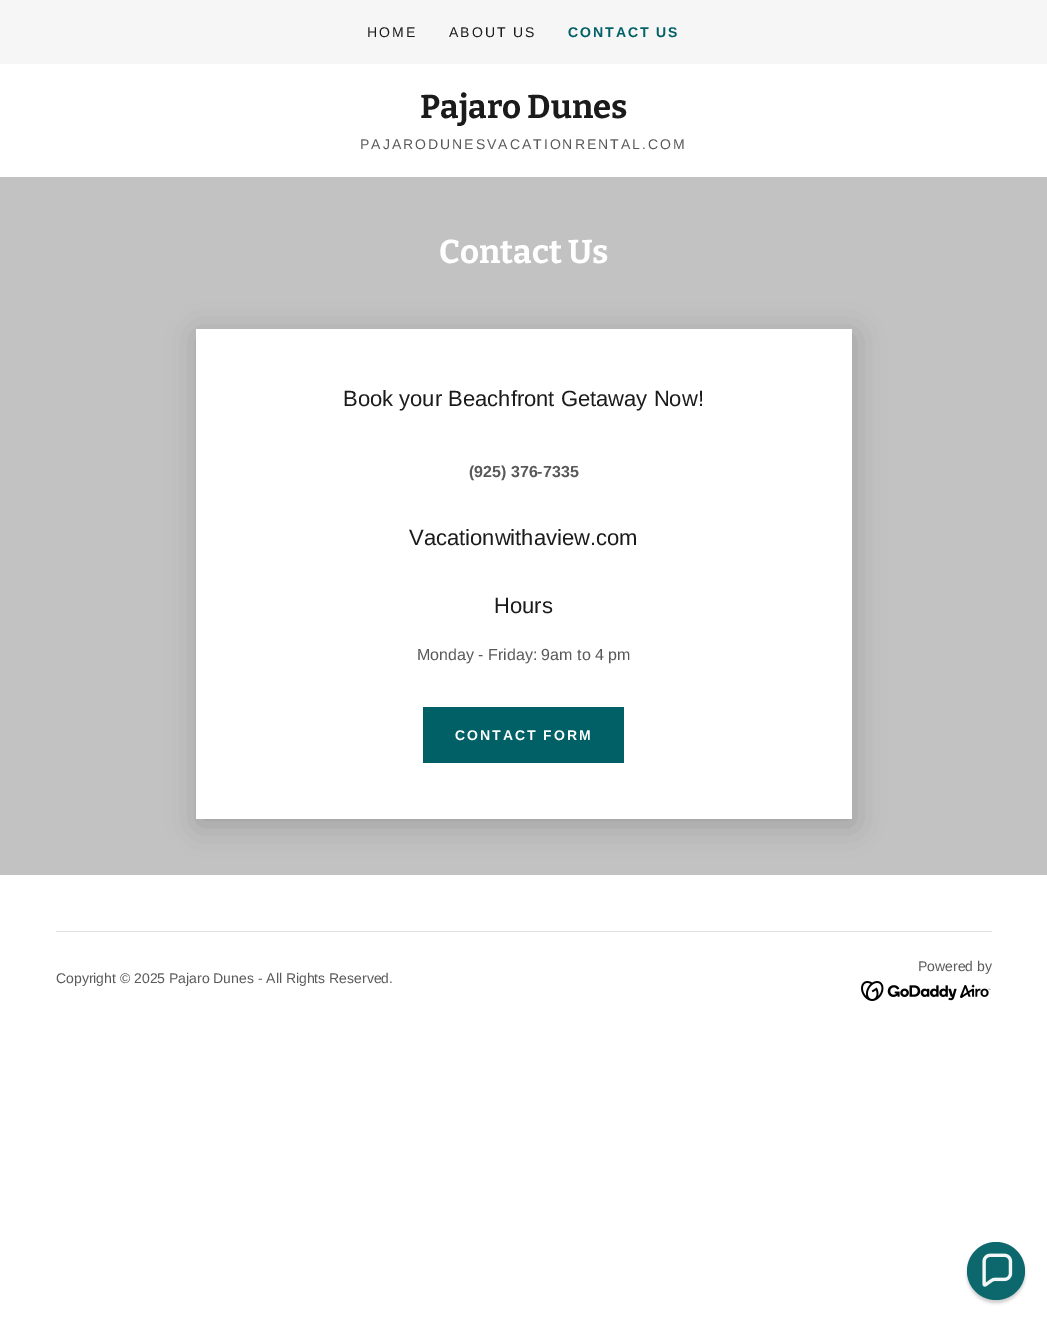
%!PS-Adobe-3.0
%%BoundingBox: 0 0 1047 1322
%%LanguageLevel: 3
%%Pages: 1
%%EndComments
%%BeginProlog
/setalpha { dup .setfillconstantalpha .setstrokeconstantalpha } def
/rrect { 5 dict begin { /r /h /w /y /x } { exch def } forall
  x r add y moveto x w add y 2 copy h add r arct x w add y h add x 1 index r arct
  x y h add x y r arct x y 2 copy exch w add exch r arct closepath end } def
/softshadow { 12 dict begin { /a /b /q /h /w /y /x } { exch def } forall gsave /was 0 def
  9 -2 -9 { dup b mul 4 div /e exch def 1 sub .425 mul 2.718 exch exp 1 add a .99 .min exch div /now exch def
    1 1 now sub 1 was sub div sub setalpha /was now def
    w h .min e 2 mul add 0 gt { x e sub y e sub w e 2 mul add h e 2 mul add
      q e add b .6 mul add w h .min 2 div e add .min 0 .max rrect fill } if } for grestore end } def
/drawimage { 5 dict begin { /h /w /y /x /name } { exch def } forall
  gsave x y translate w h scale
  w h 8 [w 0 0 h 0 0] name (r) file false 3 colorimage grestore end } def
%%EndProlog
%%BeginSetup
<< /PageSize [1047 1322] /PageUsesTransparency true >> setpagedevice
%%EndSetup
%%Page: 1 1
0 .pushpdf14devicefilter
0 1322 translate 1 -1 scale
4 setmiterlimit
1 setgray
0 0 1047 1322 rectfill
0.965 setgray
0 0 1047 64 rectfill
0.761 setgray
0 177 1047 698 rectfill
0 setgray
198 335 656 490 0 15 0.18 softshadow
1 setgray
196 329 656 490 rectfill
0 0.376 0.396 setrgbcolor
423 707 201 56 rectfill
0.886 setgray
56 931 936 1 rectfill
(images/1.raw) 861 981 130 20 drawimage
0.051 setgray
967 1245 58 58 29 1.5 0.2 softshadow
0.051 0.408 0.427 setrgbcolor
newpath 996 1271 29 0 360 arc closepath fill
(images/2.raw) 982 1253 31 34 drawimage
/LiberationSans-Regular [14 0 0 -14 0 0] selectfont
0.106 setgray
367 37 moveto 2 0 (HOME) ashow
449 37 moveto 2 0 (ABOUT US) ashow
/LiberationSans-Bold [14 0 0 -14 0 0] selectfont
0 0.376 0.396 setrgbcolor
568 37 moveto 2 0 (CONTACT US) ashow
/Bitter-Thin [33 0 0 -33 0 0] selectfont
0.106 setgray
420 118 moveto (Pajaro Dunes) show
/LiberationSans-Regular [14 0 0 -14 0 0] selectfont
0.349 setgray
360 149 moveto 2 0 (PAJARODUNESVACATIONRENTAL.COM) ashow
/Bitter-Thin [33 0 0 -33 0 0] selectfont
1 setgray
439 263 moveto (Contact Us) show
/LiberationSans-Regular [22 0 0 -22 0 0] selectfont
0.106 setgray
343 406 moveto (Book your Beachfront Getaway Now!) show
/LiberationSans-Bold [16 0 0 -16 0 0] selectfont
0.349 setgray
469 477 moveto (\(925\) 376-7335) show
/LiberationSans-Regular [22 0 0 -22 0 0] selectfont
0.106 setgray
409 545 moveto (Vacationwithaview.com) show
494 613 moveto (Hours) show
/LiberationSans-Regular [16 0 0 -16 0 0] selectfont
0.349 setgray
417 660 moveto (Monday - Friday: 9am to 4 pm) show
/LiberationSans-Bold [14 0 0 -14 0 0] selectfont
1 setgray
455 740 moveto 2 0 (CONTACT FORM) ashow
/LiberationSans-Regular [14 0 0 -14 0 0] selectfont
0.349 setgray
918 971 moveto (Powered by) show
56 983 moveto (Copyright © 2025 Pajaro Dunes - All Rights Reserved.) show
.poppdf14devicefilter showpage
%%EOF
